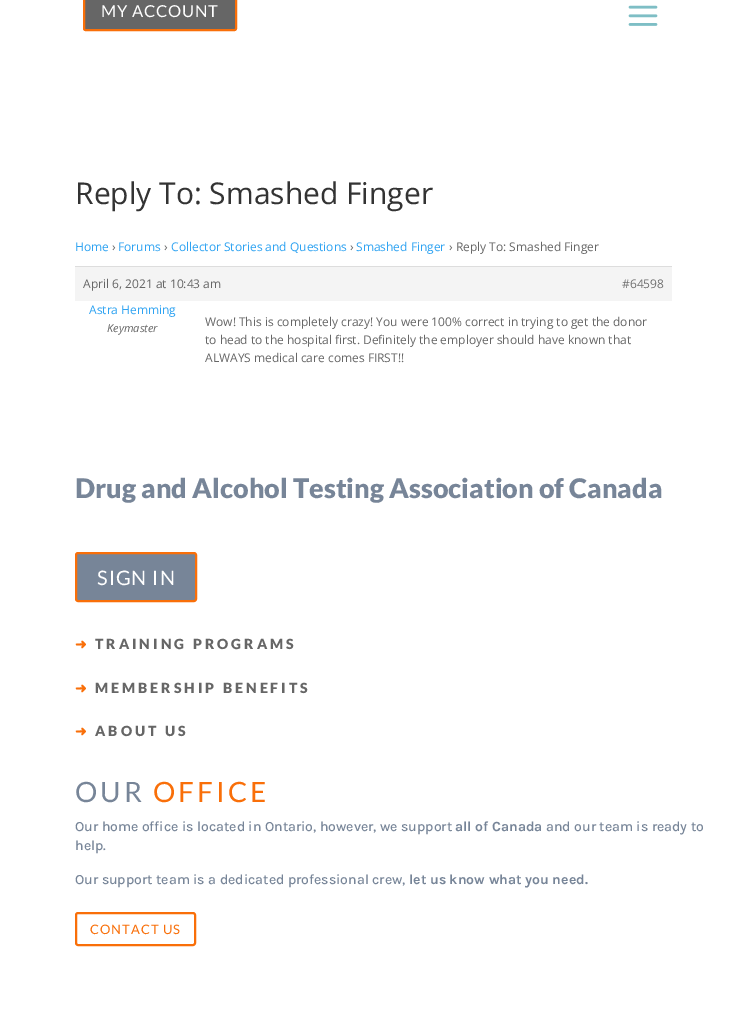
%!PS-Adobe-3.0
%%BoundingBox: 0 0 747 1018
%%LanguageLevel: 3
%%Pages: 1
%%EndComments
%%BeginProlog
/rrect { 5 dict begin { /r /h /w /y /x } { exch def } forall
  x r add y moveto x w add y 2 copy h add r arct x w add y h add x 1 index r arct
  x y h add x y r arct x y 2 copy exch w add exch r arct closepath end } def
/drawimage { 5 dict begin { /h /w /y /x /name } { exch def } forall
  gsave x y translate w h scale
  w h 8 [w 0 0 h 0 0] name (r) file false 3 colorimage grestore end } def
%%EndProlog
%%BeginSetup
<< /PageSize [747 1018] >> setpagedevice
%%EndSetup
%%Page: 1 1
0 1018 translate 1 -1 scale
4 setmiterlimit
1 setgray
0 0 747 1018 rectfill
0.4 setgray
84 -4 152 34 1.5 rrect gsave fill grestore
0.976 0.435 0.035 setrgbcolor
2 setlinewidth
stroke
(images/1.raw) 628 5 30 21 drawimage
0.957 setgray
75 267 597 34 rectfill
0.867 setgray
75 266 597 1 rectfill
0.467 0.522 0.596 setrgbcolor
76 553 120 48 2 rrect gsave fill grestore
0.976 0.435 0.035 setrgbcolor
stroke
76 913 119 32 2 rrect stroke
/Lato-Regular [16.5 0 0 -16.5 0 0] selectfont
1 setgray
101 17 moveto 0.75 0 (MY ACCOUNT) ashow
/OpenSans-Regular [30 0 0 -30 0 0] selectfont
0.2 setgray
75 204 moveto (Reply To: Smashed Finger) show
/OpenSans-Regular [12 0 0 -12 0 0] selectfont
0.18 0.639 0.949 setrgbcolor
75 251 moveto (Home) show
0.4 setgray
112 251 moveto (›) show
0.18 0.639 0.949 setrgbcolor
118 251 moveto (Forums) show
0.4 setgray
164 251 moveto (›) show
0.18 0.639 0.949 setrgbcolor
171 251 moveto (Collector Stories and Questions) show
0.4 setgray
350 251 moveto (›) show
0.18 0.639 0.949 setrgbcolor
356 251 moveto (Smashed Finger) show
0.4 setgray
449 251 moveto (› Reply To: Smashed Finger) show
83 288 moveto (April 6, 2021 at 10:43 am) show
0.439 setgray
622 288 moveto (#64598) show
0.18 0.639 0.949 setrgbcolor
89 314 moveto (Astra Hemming) show
/OpenSans-Italic [11 0 0 -11 0 0] selectfont
0.4 setgray
107 332 moveto (Keymaster) show
/OpenSans-Regular [12 0 0 -12 0 0] selectfont
205 326 moveto (Wow! This is completely crazy! You were 100% correct in trying to get the donor) show
205 344 moveto (to head to the hospital first. Definitely the employer should have known that) show
205 362 moveto (ALWAYS medical care comes FIRST!!) show
/Lato-Black [27 0 0 -27 0 0] selectfont
0.467 0.522 0.596 setrgbcolor
75 498 moveto (Drug and Alcohol Testing Association of Canada) show
/Lato-Regular [20 0 0 -20 0 0] selectfont
1 setgray
97 585 moveto 1 0 (SIGN IN) ashow
/DejaVuSans-Bold [14 0 0 -14 0 0] selectfont
0.976 0.435 0.035 setrgbcolor
75 649 moveto 3 0 (➜) ashow
/Lato-Black [14 0 0 -14 0 0] selectfont
0.4 setgray
95 649 moveto 3 0 (TRAINING PROGRAMS) ashow
/DejaVuSans-Bold [14 0 0 -14 0 0] selectfont
0.976 0.435 0.035 setrgbcolor
75 693 moveto 3 0 (➜) ashow
/Lato-Black [14 0 0 -14 0 0] selectfont
0.4 setgray
95 693 moveto 3 0 (MEMBERSHIP BENEFITS) ashow
/DejaVuSans-Bold [14 0 0 -14 0 0] selectfont
0.976 0.435 0.035 setrgbcolor
75 736 moveto 3 0 (➜) ashow
/Lato-Black [14 0 0 -14 0 0] selectfont
0.4 setgray
95 736 moveto 3 0 (ABOUT US) ashow
/Lato-Regular [28 0 0 -28 0 0] selectfont
0.467 0.522 0.596 setrgbcolor
75 802 moveto 3 0 (OUR) ashow
0.976 0.435 0.035 setrgbcolor
153 802 moveto 3 0 (OFFICE) ashow
/Karla-Medium [14 0 0 -14 0 0] selectfont
0.467 0.522 0.596 setrgbcolor
75 831 moveto (Our home office is located in Ontario, however, we support) show
/Karla-Bold [14 0 0 -14 0 0] selectfont
455 831 moveto (all of Canada) show
/Karla-Medium [14 0 0 -14 0 0] selectfont
546 831 moveto (and our team is ready to) show
75 850 moveto (help.) show
75 884 moveto (Our support team is a dedicated professional crew,) show
/Karla-Bold [14 0 0 -14 0 0] selectfont
409 884 moveto (let us know what you need.) show
/Lato-Regular [13 0 0 -13 0 0] selectfont
0.976 0.435 0.035 setrgbcolor
90 934 moveto 1 0 (CONTACT US) ashow
showpage
%%EOF
